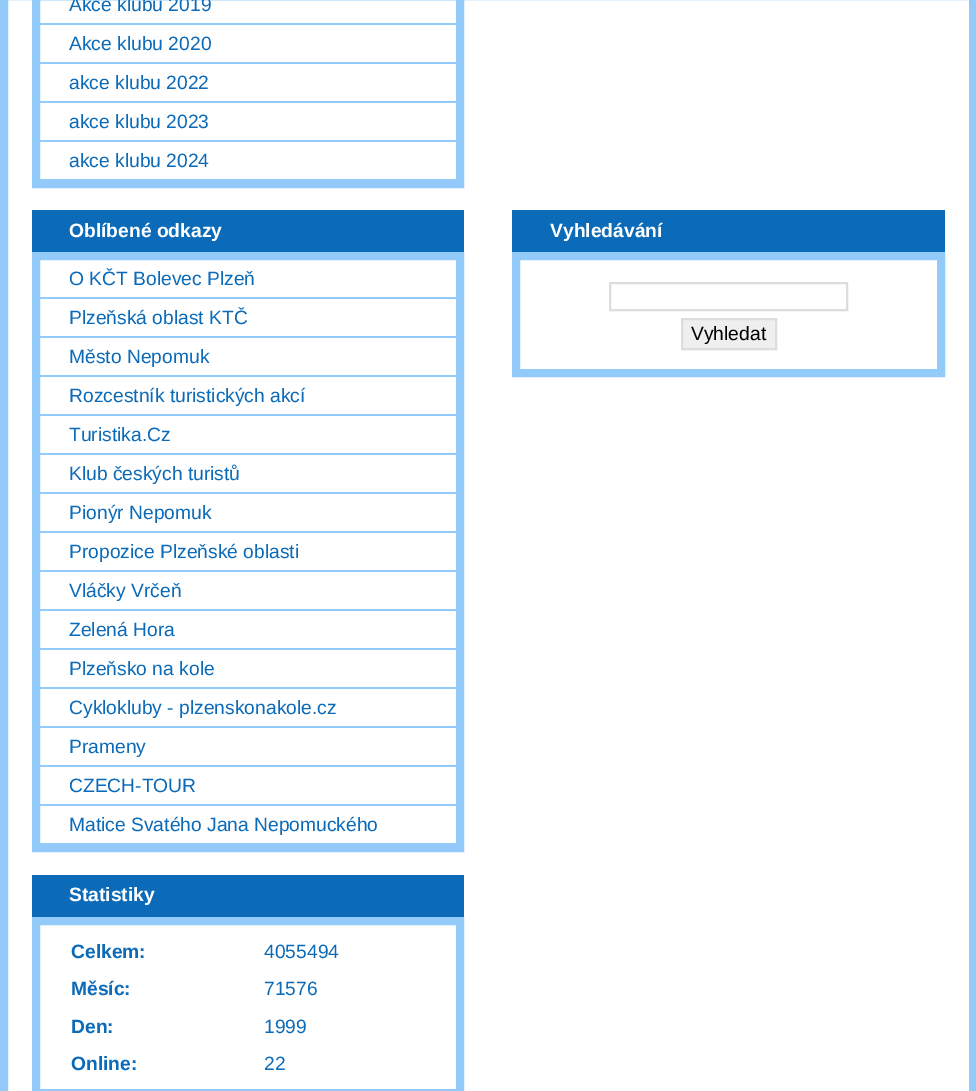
%!PS-Adobe-3.0
%%BoundingBox: 0 0 976 1091
%%LanguageLevel: 3
%%Pages: 1
%%EndComments
%%BeginProlog
%%EndProlog
%%BeginSetup
<< /PageSize [976 1091] >> setpagedevice
%%EndSetup
%%Page: 1 1
0 1091 translate 1 -1 scale
4 setmiterlimit
1 setgray
0 0 976 1091 rectfill
0.573 0.796 0.976 setrgbcolor
8 setlinewidth
4 -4 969 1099 rectstroke
36 -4 424 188 rectstroke
39 23 417 2 rectfill
39 62 417 2 rectfill
39 101 417 2 rectfill
39 140 417 2 rectfill
39 179 417 1 rectfill
0.047 0.42 0.722 setrgbcolor
32 210 432 42 rectfill
0.573 0.796 0.976 setrgbcolor
36 256 424 592 rectstroke
39 297 417 2 rectfill
39 336 417 2 rectfill
39 375 417 2 rectfill
39 414 417 2 rectfill
39 453 417 2 rectfill
39 492 417 2 rectfill
39 531 417 2 rectfill
39 570 417 2 rectfill
39 609 417 2 rectfill
39 648 417 2 rectfill
39 687 417 2 rectfill
39 726 417 2 rectfill
39 765 417 2 rectfill
39 804 417 2 rectfill
39 843 417 1 rectfill
0.047 0.42 0.722 setrgbcolor
512 210 433 42 rectfill
0.573 0.796 0.976 setrgbcolor
516 256 425 117 rectstroke
0.867 setgray
2 setlinewidth
610 283 237 27 rectstroke
0.937 setgray
newpath 682 319 moveto 776 319 lineto 776 349 lineto 682 349 lineto closepath gsave fill grestore
0.867 setgray
stroke
0.047 0.42 0.722 setrgbcolor
32 875 432 42 rectfill
0.573 0.796 0.976 setrgbcolor
8 setlinewidth
36 921 424 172 rectstroke
/LiberationSans-Regular [19.25 0 0 -19.25 0 0] selectfont
0.047 0.42 0.722 setrgbcolor
69 11 moveto (Akce klubu 2019) show
69 50 moveto (Akce klubu 2020) show
69 89 moveto (akce klubu 2022) show
69 128 moveto (akce klubu 2023) show
69 167 moveto (akce klubu 2024) show
/LiberationSans-Bold [19.25 0 0 -19.25 0 0] selectfont
1 setgray
69 237 moveto (Oblíbené odkazy) show
/LiberationSans-Regular [19.25 0 0 -19.25 0 0] selectfont
0.047 0.42 0.722 setrgbcolor
69 285 moveto (O KČT Bolevec Plzeň) show
69 324 moveto (Plzeňská oblast KTČ) show
69 363 moveto (Město Nepomuk) show
69 402 moveto (Rozcestník turistických akcí) show
69 441 moveto (Turistika.Cz) show
69 480 moveto (Klub českých turistů) show
69 519 moveto (Pionýr Nepomuk) show
69 558 moveto (Propozice Plzeňské oblasti) show
69 597 moveto (Vláčky Vrčeň) show
69 636 moveto (Zelená Hora) show
69 675 moveto (Plzeňsko na kole) show
69 714 moveto (Cyklokluby - plzenskonakole.cz) show
69 753 moveto (Prameny) show
69 792 moveto (CZECH-TOUR) show
69 831 moveto (Matice Svatého Jana Nepomuckého) show
/LiberationSans-Bold [19.25 0 0 -19.25 0 0] selectfont
1 setgray
550 237 moveto (Vyhledávání) show
/LiberationSans-Regular [19.25 0 0 -19.25 0 0] selectfont
0 setgray
691 340 moveto (Vyhledat) show
/LiberationSans-Bold [19.25 0 0 -19.25 0 0] selectfont
1 setgray
69 901 moveto (Statistiky) show
0.047 0.42 0.722 setrgbcolor
71 958 moveto (Celkem:) show
/LiberationSans-Regular [19.25 0 0 -19.25 0 0] selectfont
264 958 moveto (4055494) show
/LiberationSans-Bold [19.25 0 0 -19.25 0 0] selectfont
71 995 moveto (Měsíc:) show
/LiberationSans-Regular [19.25 0 0 -19.25 0 0] selectfont
264 995 moveto (71576) show
/LiberationSans-Bold [19.25 0 0 -19.25 0 0] selectfont
71 1033 moveto (Den:) show
/LiberationSans-Regular [19.25 0 0 -19.25 0 0] selectfont
264 1033 moveto (1999) show
/LiberationSans-Bold [19.25 0 0 -19.25 0 0] selectfont
71 1070 moveto (Online:) show
/LiberationSans-Regular [19.25 0 0 -19.25 0 0] selectfont
264 1070 moveto (22) show
showpage
%%EOF
